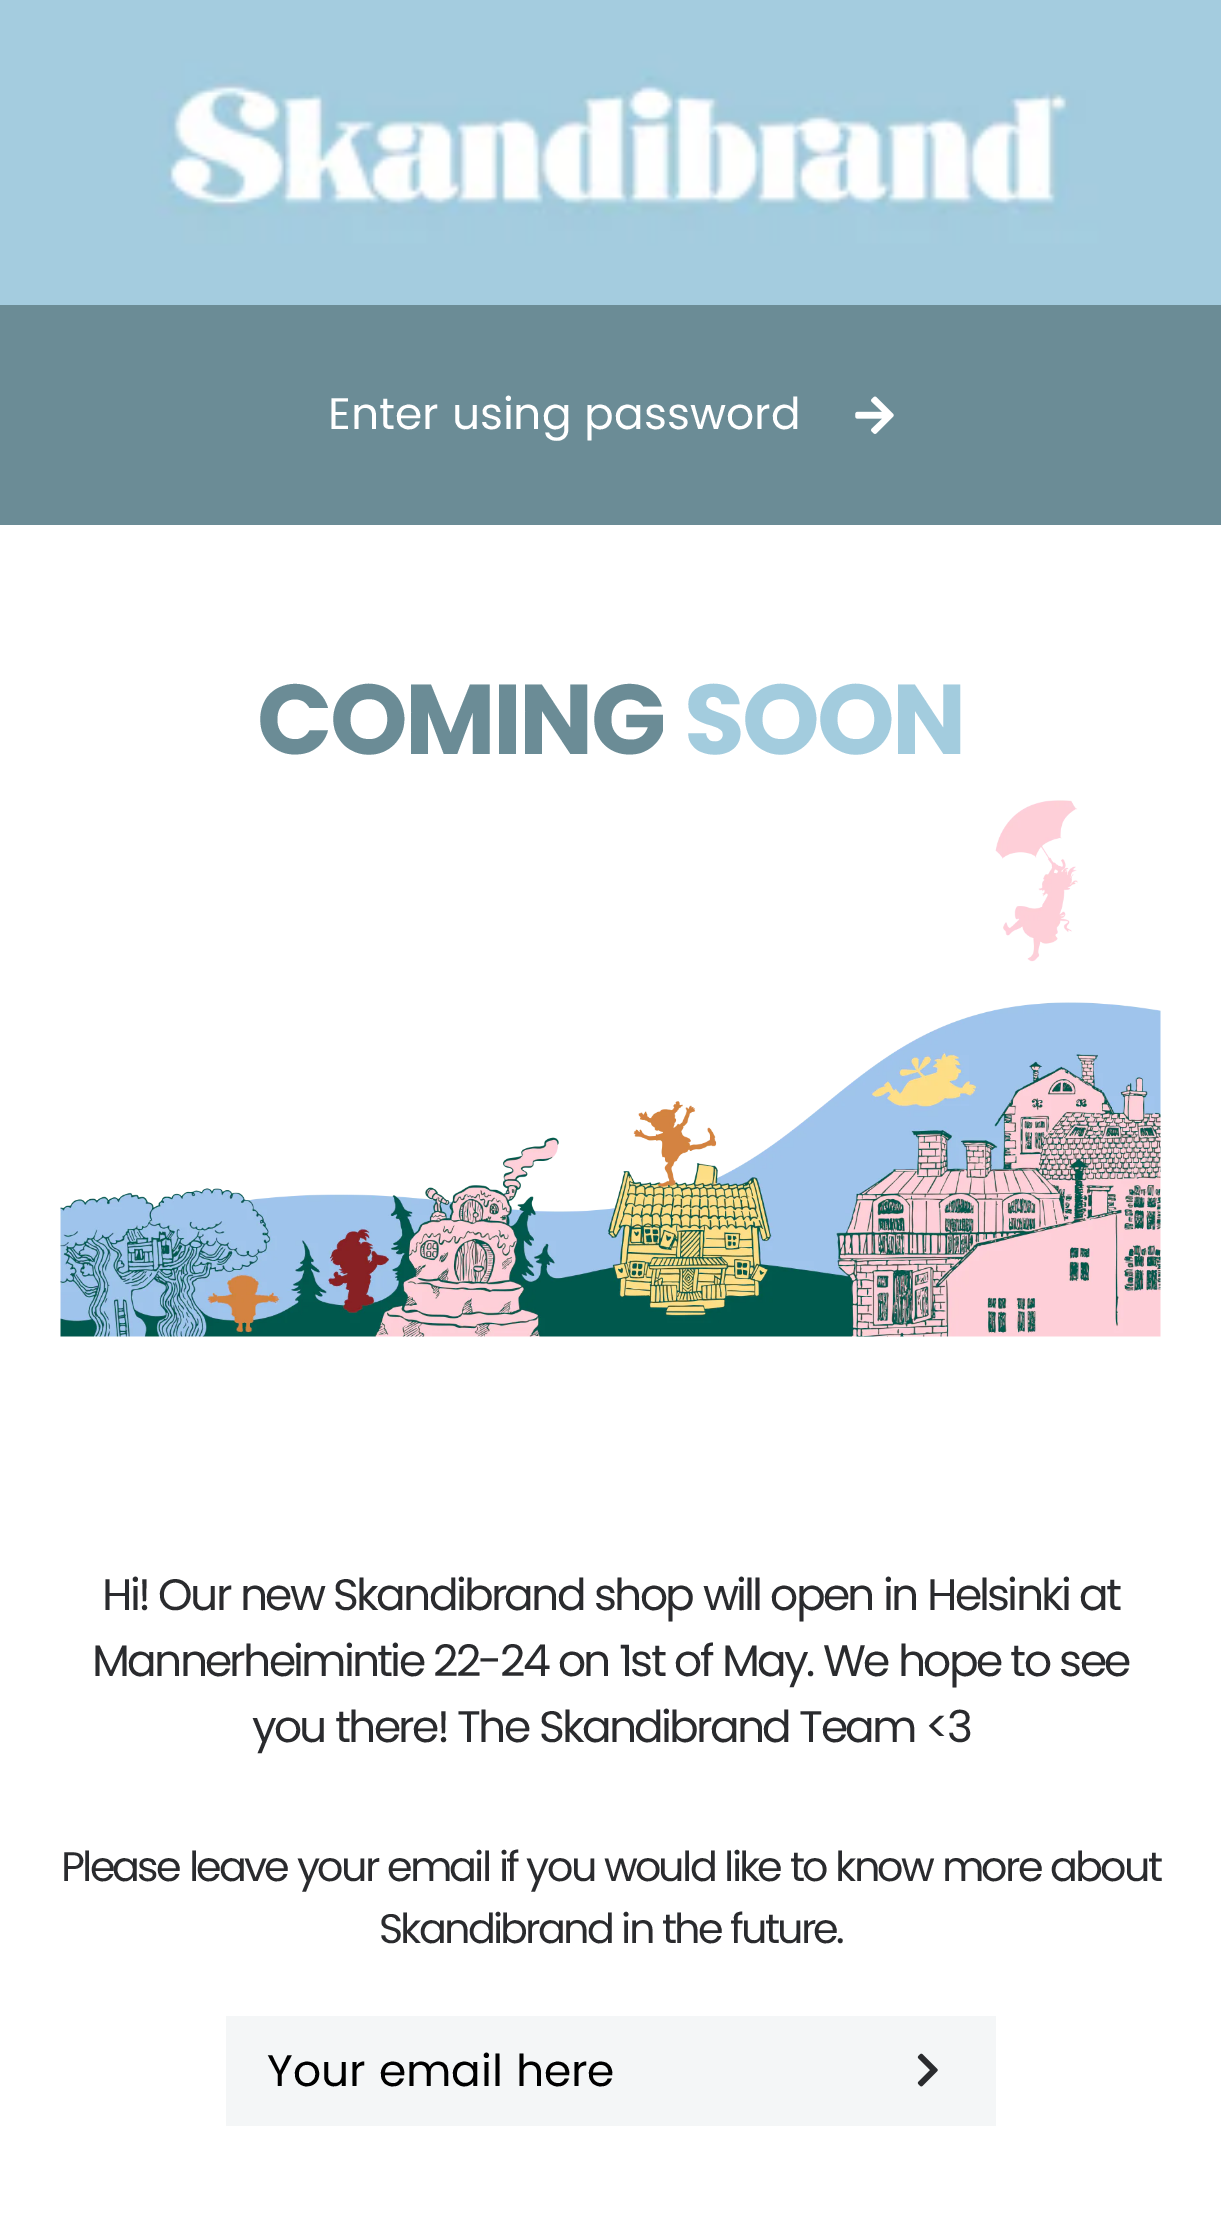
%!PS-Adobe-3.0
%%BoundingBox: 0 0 1221 2225
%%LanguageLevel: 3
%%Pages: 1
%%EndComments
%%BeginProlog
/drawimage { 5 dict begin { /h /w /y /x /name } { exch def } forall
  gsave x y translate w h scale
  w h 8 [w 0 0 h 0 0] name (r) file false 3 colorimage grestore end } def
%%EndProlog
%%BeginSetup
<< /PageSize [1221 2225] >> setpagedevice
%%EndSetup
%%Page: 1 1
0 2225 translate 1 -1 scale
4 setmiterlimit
1 setgray
0 0 1221 2225 rectfill
(images/1.raw) 0 0 1221 305 drawimage
0.42 0.549 0.588 setrgbcolor
0 305 1221 220 rectfill
(images/2.raw) 855 396 39 38 drawimage
(images/3.raw) 60 800 1101 537 drawimage
0.957 0.965 0.969 setrgbcolor
226 2016 770 110 rectfill
(images/4.raw) 917 2053 21 34 drawimage
/Poppins-Regular [44 0 0 -44 0 0] selectfont
1 setgray
328 429 moveto (Enter using password) show
/Poppins-Bold [99 0 0 -99 0 0] selectfont
0.42 0.549 0.588 setrgbcolor
257 754 moveto -2.75 0 (COMING) ashow
0.639 0.8 0.871 setrgbcolor
684 754 moveto -2.75 0 (SOON) ashow
/Poppins-Regular [44 0 0 -44 0 0] selectfont
0.165 0.169 0.18 setrgbcolor
102 1610 moveto -2.75 0 (Hi! Our new Skandibrand shop will open in Helsinki at) ashow
92 1676 moveto -2.75 0 (Mannerheimintie 22-24 on 1st of May. We hope to see) ashow
252 1742 moveto -2.75 0 (you there! The Skandibrand Team <3) ashow
/Poppins-Regular [41.25 0 0 -41.25 0 0] selectfont
61 1881 moveto -2.75 0 (Please leave your email if you would like to know more about) ashow
379 1943 moveto -2.75 0 (Skandibrand in the future.) ashow
/Poppins-Regular [44 0 0 -44 0 0] selectfont
0 setgray
267 2086 moveto (Your email here) show
showpage
%%EOF
